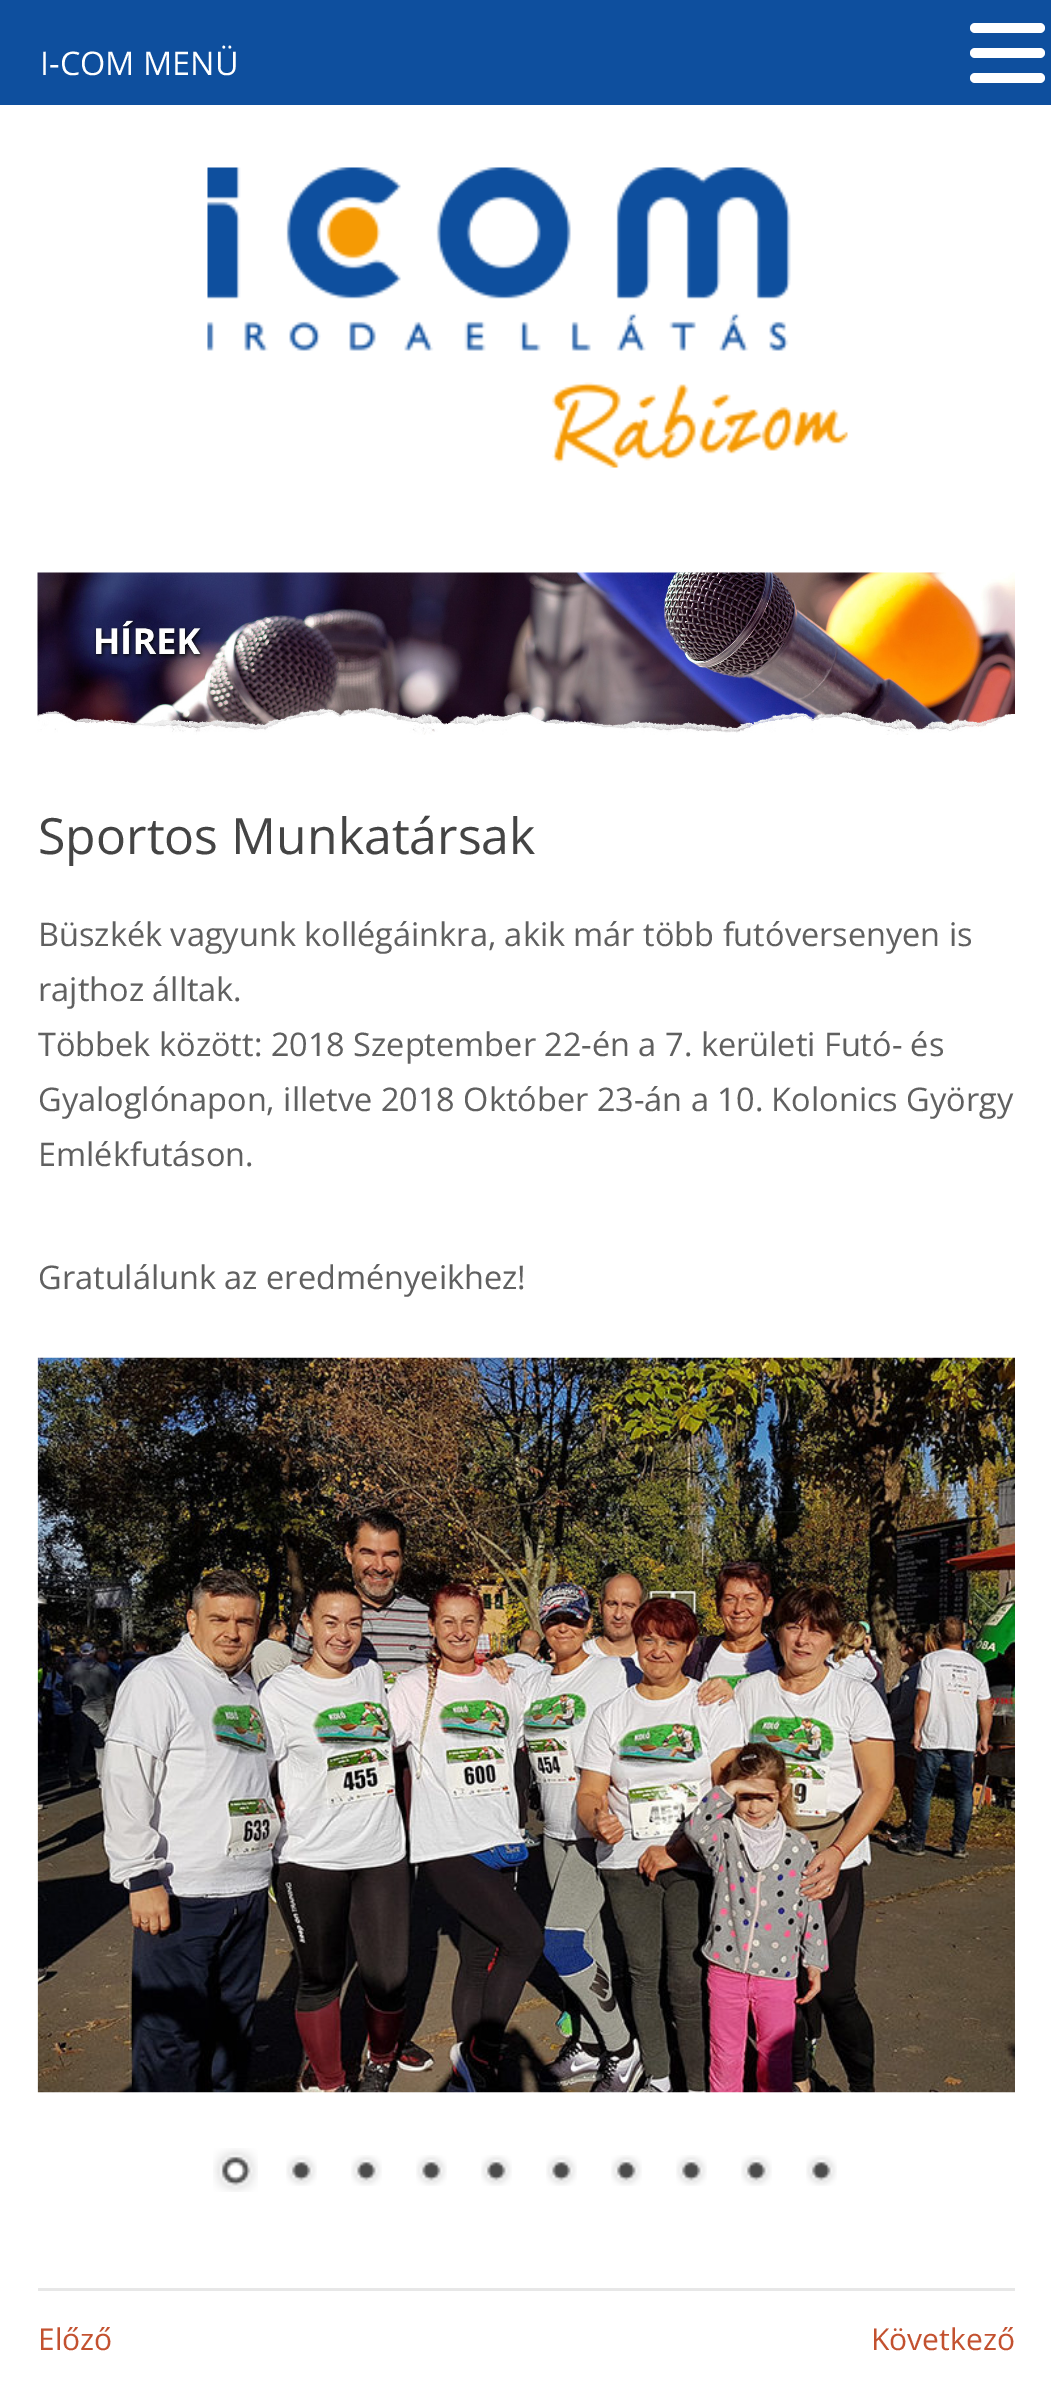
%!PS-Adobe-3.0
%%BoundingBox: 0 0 1051 2389
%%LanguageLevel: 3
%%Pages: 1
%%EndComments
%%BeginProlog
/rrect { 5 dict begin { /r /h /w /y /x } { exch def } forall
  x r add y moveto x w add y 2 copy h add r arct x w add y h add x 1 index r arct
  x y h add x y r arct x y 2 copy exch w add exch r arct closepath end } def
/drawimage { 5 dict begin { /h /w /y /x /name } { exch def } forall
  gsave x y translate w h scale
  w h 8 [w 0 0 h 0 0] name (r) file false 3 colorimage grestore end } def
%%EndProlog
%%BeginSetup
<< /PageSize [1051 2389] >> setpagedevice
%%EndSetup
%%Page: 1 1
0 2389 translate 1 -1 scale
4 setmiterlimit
1 setgray
0 0 1051 2389 rectfill
0.055 0.31 0.62 setrgbcolor
0 0 1051 105 rectfill
1 setgray
970 23 75 10 5 rrect fill
970 48 75 10 5 rrect fill
970 73 75 10 5 rrect fill
(images/1.raw) 207 167 641 301 drawimage
(images/2.raw) 37 572 978 163 drawimage
(images/3.raw) 37 1357 978 736 drawimage
(images/4.raw) 213 2148 45 44 drawimage
(images/5.raw) 286 2155 31 31 drawimage
(images/6.raw) 351 2155 31 31 drawimage
(images/6.raw) 416 2155 31 31 drawimage
(images/5.raw) 481 2155 31 31 drawimage
(images/6.raw) 546 2155 31 31 drawimage
(images/5.raw) 611 2155 31 31 drawimage
(images/5.raw) 676 2155 31 31 drawimage
(images/5.raw) 741 2155 31 31 drawimage
(images/5.raw) 806 2155 31 31 drawimage
0.906 setgray
38 2288 977 3 rectfill
/OpenSans-Regular [32.5 0 0 -32.5 0 0] selectfont
1 setgray
40 75 moveto (I-COM MENÜ) show
/OpenSans-Regular [50 0 0 -50 0 0] selectfont
0.267 setgray
38 854 moveto (Sportos Munkatársak) show
/OpenSans-Regular [32.5 0 0 -32.5 0 0] selectfont
0.376 setgray
38 946 moveto (Büszkék vagyunk kollégáinkra, akik már több futóversenyen is) show
38 1001 moveto (rajthoz álltak.) show
38 1056 moveto (Többek között: 2018 Szeptember 22-én a 7. kerületi Futó- és) show
38 1111 moveto (Gyaloglónapon, illetve 2018 Október 23-án a 10. Kolonics György) show
38 1166 moveto (Emlékfutáson.) show
38 1289 moveto (Gratulálunk az eredményeikhez!) show
/OpenSans-Regular [30 0 0 -30 0 0] selectfont
0.765 0.318 0.184 setrgbcolor
38 2350 moveto (Előző) show
871 2350 moveto (Következő) show
showpage
%%EOF
